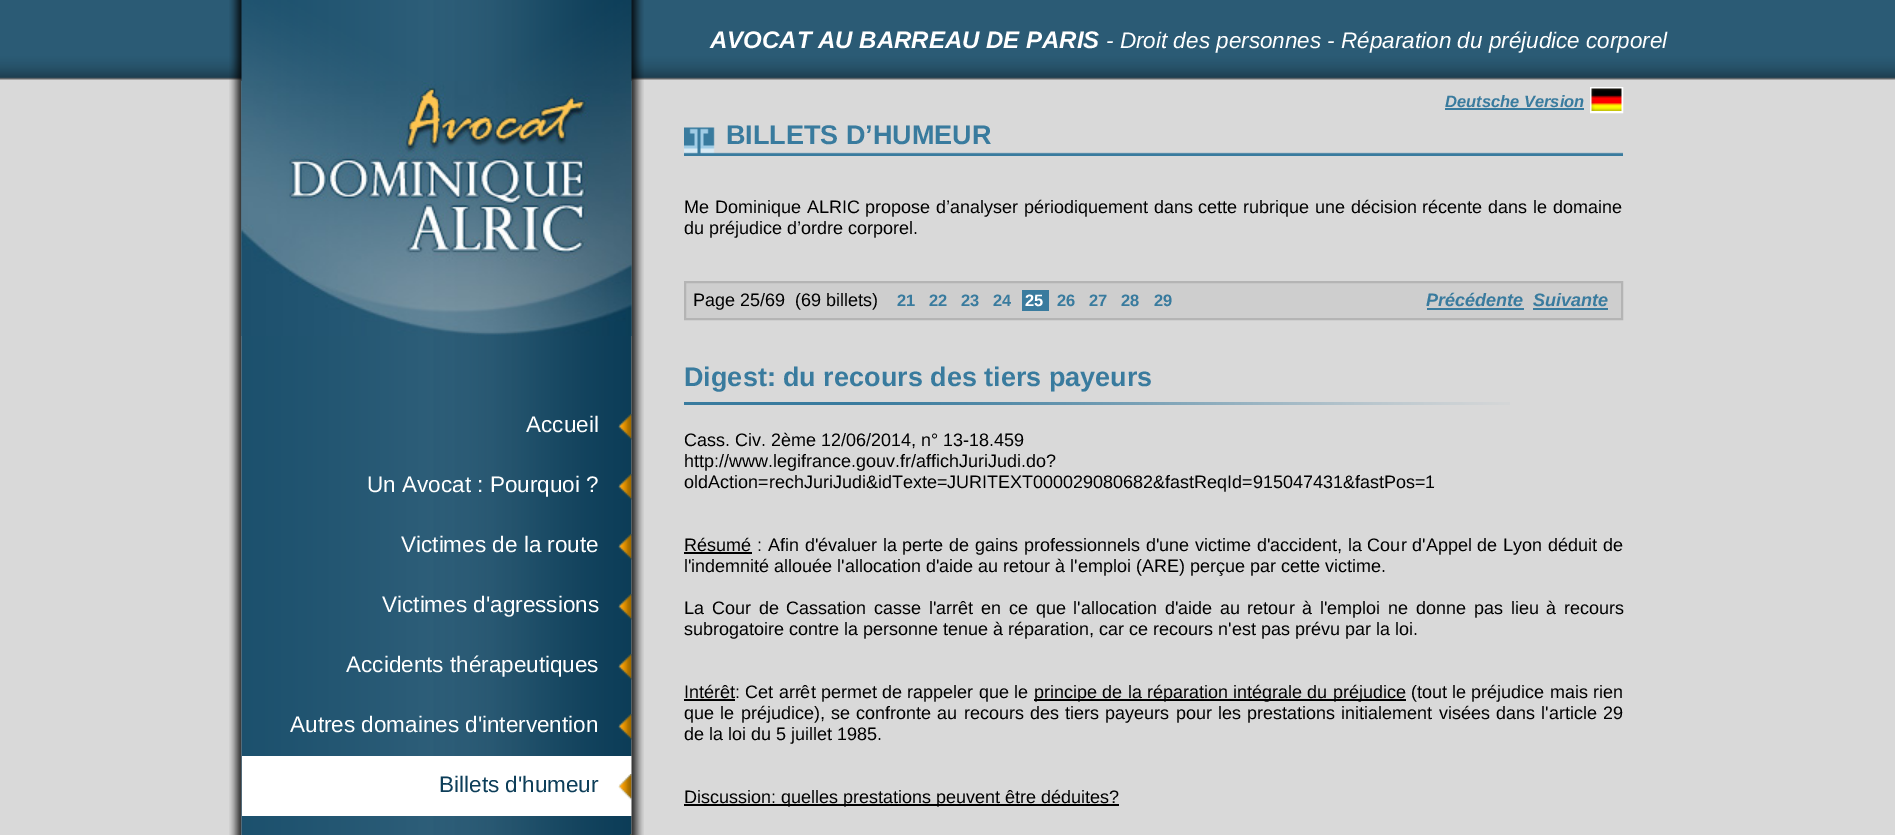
%!PS-Adobe-3.0
%%BoundingBox: 0 0 1895 835
%%LanguageLevel: 3
%%Pages: 1
%%EndComments
%%BeginProlog
/drawimage { 5 dict begin { /h /w /y /x /name } { exch def } forall
  gsave x y translate w h scale
  w h 8 [w 0 0 h 0 0] name (r) file false 3 colorimage grestore end } def
%%EndProlog
%%BeginSetup
<< /PageSize [1895 835] >> setpagedevice
%%EndSetup
%%Page: 1 1
0 835 translate 1 -1 scale
4 setmiterlimit
0.851 setgray
0 0 1895 835 rectfill
(images/1.raw) 0 0 1895 80 drawimage
(images/2.raw) 229 0 415 81 drawimage
(images/3.raw) 229 81 13 754 drawimage
(images/4.raw) 241 81 391 754 drawimage
(images/6.raw) 618 414 14 26 drawimage
(images/6.raw) 618 474 14 26 drawimage
(images/6.raw) 618 534 14 26 drawimage
(images/6.raw) 618 594 14 26 drawimage
(images/6.raw) 618 654 14 26 drawimage
(images/6.raw) 618 714 14 26 drawimage
1 setgray
242 756 390 60 rectfill
(images/7.raw) 618 774 14 26 drawimage
(images/8.raw) 629 834 3 1 drawimage
(images/9.raw) 631 81 13 754 drawimage
(images/5.raw) 241 81 391 255 drawimage
0.224 0.482 0.62 setrgbcolor
1445 108 139 2 rectfill
1 setgray
2 setlinewidth
1591 88 31 24 rectstroke
(images/10.raw) 1591 88 31 23 drawimage
(images/11.raw) 684 127 939 29 drawimage
0.808 setgray
newpath 685 282 moveto 1622 282 lineto 1622 319 lineto 685 319 lineto closepath gsave fill grestore
0.706 setgray
stroke
0.224 0.482 0.62 setrgbcolor
1022 290 27 21 rectfill
1427 308 97 2 rectfill
1533 308 75 2 rectfill
(images/12.raw) 684 402 826 3 drawimage
0 setgray
684 552 68 2 rectfill
684 699 51 2 rectfill
1034 699 372 2 rectfill
684 804 435 2 rectfill
/LiberationSans-BoldItalic [24 0 0 -24 0 0] selectfont
1 setgray
710 48 moveto (AVOCAT AU BARREAU DE PARIS) show
/LiberationSans-Italic [22.5 0 0 -22.5 0 0] selectfont
1106 48 moveto (- Droit des personnes - Réparation du préjudice corporel) show
/LiberationSans-Regular [22.5 0 0 -22.5 0 0] selectfont
526 432 moveto (Accueil) show
367 492 moveto (Un Avocat : Pourquoi ?) show
401 552 moveto (Victimes de la route) show
382 612 moveto (Victimes d'agressions) show
346 672 moveto (Accidents thérapeutiques) show
290 732 moveto (Autres domaines d'intervention) show
0.051 0.243 0.349 setrgbcolor
439 792 moveto (Billets d'humeur) show
/LiberationSans-BoldItalic [16.5 0 0 -16.5 0 0] selectfont
0.224 0.482 0.62 setrgbcolor
1445 107 moveto (Deutsche Version) show
/LiberationSans-Bold [27 0 0 -27 0 0] selectfont
726 144 moveto (BILLETS D’HUMEUR) show
/LiberationSans-Regular [18 0 0 -18 0 0] selectfont
0 setgray
684 213 moveto 0.75 0 32 (Me Dominique ALRIC propose d’analyser périodiquement dans cette rubrique une décision récente dans le domaine) widthshow
684 234 moveto (du préjudice d’ordre corporel.) show
693 306 moveto (Page 25/69) show
795 306 moveto (\(69 billets\)) show
/LiberationSans-Bold [16.5 0 0 -16.5 0 0] selectfont
0.224 0.482 0.62 setrgbcolor
897 306 moveto (21) show
929 306 moveto (22) show
961 306 moveto (23) show
993 306 moveto (24) show
1 setgray
1025 306 moveto (25) show
0.224 0.482 0.62 setrgbcolor
1057 306 moveto (26) show
1089 306 moveto (27) show
1121 306 moveto (28) show
1154 306 moveto (29) show
/LiberationSans-BoldItalic [18 0 0 -18 0 0] selectfont
1426 306 moveto (Précédente) show
1533 306 moveto (Suivante) show
/LiberationSans-Bold [27 0 0 -27 0 0] selectfont
684 386 moveto (Digest: du recours des tiers payeurs) show
/LiberationSans-Regular [18 0 0 -18 0 0] selectfont
0 setgray
684 446 moveto (Cass. Civ. 2ème 12/06/2014, n° 13-18.459) show
684 467 moveto (http://www.legifrance.gouv.fr/affichJuriJudi.do?) show
684 488 moveto (oldAction=rechJuriJudi&idTexte=JURITEXT000029080682&fastReqId=915047431&fastPos=1) show
684 551 moveto (Résumé) show
757 551 moveto 0.75 0 32 (: Afin d'évaluer la perte de gains professionnels d'une victime d'accident, la Cour d'Appel de Lyon déduit de) widthshow
684 572 moveto (l'indemnité allouée l'allocation d'aide au retour à l'emploi \(ARE\) perçue par cette victime.) show
684 614 moveto 2.75 0 32 (La Cour de Cassation casse l'arrêt en ce que l'allocation d'aide au retour à l'emploi ne donne pas lieu à recours) widthshow
684 635 moveto (subrogatoire contre la personne tenue à réparation, car ce recours n'est pas prévu par la loi.) show
684 698 moveto (Intérêt) show
735 698 moveto 0.25 0 32 (: Cet arrêt permet de rappeler que le) widthshow
1034 698 moveto 0.25 0 32 (principe de la réparation intégrale du préjudice \(tout le préjudice mais rien) widthshow
684 719 moveto 1.25 0 32 (que le préjudice\), se confronte au recours des tiers payeurs pour les prestations initialement visées dans l'article 29) widthshow
684 740 moveto (de la loi du 5 juillet 1985.) show
684 803 moveto (Discussion: quelles prestations peuvent être déduites?) show
showpage
%%EOF
